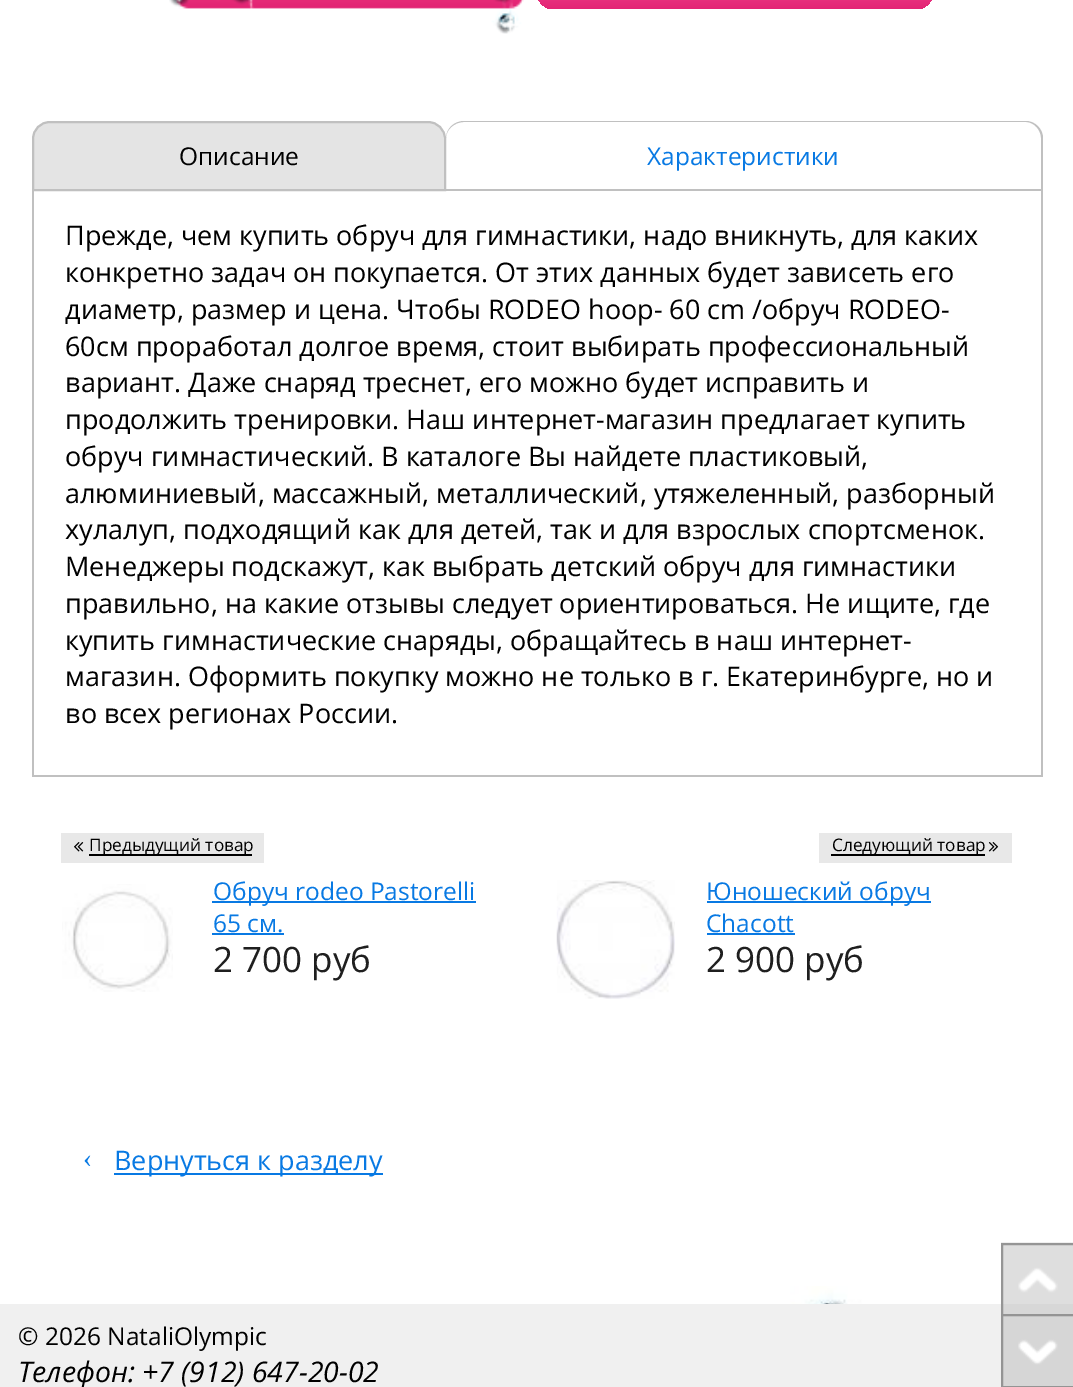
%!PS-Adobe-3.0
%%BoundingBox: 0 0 1073 1387
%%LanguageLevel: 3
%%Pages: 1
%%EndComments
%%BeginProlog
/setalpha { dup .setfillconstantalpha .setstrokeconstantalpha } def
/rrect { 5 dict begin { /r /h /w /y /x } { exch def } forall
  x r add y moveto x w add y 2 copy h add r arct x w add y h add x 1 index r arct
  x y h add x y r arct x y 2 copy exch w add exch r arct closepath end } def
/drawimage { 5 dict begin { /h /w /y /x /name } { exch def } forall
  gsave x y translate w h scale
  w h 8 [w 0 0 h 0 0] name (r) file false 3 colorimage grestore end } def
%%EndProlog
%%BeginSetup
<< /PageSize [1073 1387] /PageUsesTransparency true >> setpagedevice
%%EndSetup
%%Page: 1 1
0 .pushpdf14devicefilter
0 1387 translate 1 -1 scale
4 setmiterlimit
1 setgray
0 0 1073 1387 rectfill
gsave 537 -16 396 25 16 rrect clip newpath
<< /ShadingType 2 /ColorSpace /DeviceRGB /Coords [735 9 735 -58] /Extend [true true] /Function << /FunctionType 2 /Domain [0 1] /C0 [0.89 0.145 0.459] /C1 [1 0.4 0.663] /N 1 >> >> shfill grestore
(images/1.raw) 169 0 355 34 drawimage
0.894 setgray
newpath 50 122 moveto 428 122 lineto 437.5 122 445 129.5 445 139 curveto 445 190 lineto 33 190 lineto 33 139 lineto 33 129.5 40.5 122 50 122 curveto closepath gsave fill grestore
0.753 setgray
2 setlinewidth
stroke
newpath 464 121 moveto 1026 121 lineto 1035 121 1043 129 1043 138 curveto 1043 191 lineto 446 191 lineto 446 138 lineto 446 129 454 121 464 121 curveto closepath 464 122 moveto 1026 122 lineto 1034 122 1041 130 1041 138 curveto 1041 189 lineto 446 189 lineto 446 138 lineto 446 130 454 122 464 122 curveto closepath eofill
1041 191 2 586 rectfill
32 775 1011 2 rectfill
32 191 2 586 rectfill
0.91 setgray
61 833 203 30 rectfill
(images/2.raw) 74 842 10 10 drawimage
0 setgray
89 854 163 2 rectfill
(images/3.raw) 62 884 111 108 drawimage
0.031 0.475 0.89 setrgbcolor
212 901 264 2 rectfill
212 933 72 2 rectfill
0.91 setgray
819 833 193 30 rectfill
0 setgray
831 854 154 2 rectfill
(images/4.raw) 988 842 11 10 drawimage
(images/5.raw) 556 880 119 119 drawimage
0.031 0.475 0.89 setrgbcolor
707 901 224 2 rectfill
707 933 88 2 rectfill
114 1173 269 2 rectfill
(images/6.raw) 0 1286 1073 18 drawimage
0.941 setgray
0 1304 1073 83 rectfill
(images/7.raw) 1001 1242 72 75 drawimage
0.99 setalpha
0.58 setgray
1002 1244 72 71 rectstroke
1 setalpha
(images/8.raw) 1003 1316 70 70 drawimage
1002 1315 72 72 rectstroke
/OpenSans-Regular [24.5 0 0 -24.5 0 0] selectfont
0 setgray
179 165 moveto (Описание) show
0.031 0.475 0.89 setrgbcolor
647 165 moveto (Характеристики) show
/OpenSans-Regular [27 0 0 -27 0 0] selectfont
0 setgray
65 245 moveto (Прежде, чем купить обруч для гимнастики, надо вникнуть, для каких) show
65 282 moveto (конкретно задач он покупается. От этих данных будет зависеть его) show
65 319 moveto (диаметр, размер и цена. Чтобы RODEO hoop- 60 cm /обруч RODEO-) show
65 356 moveto (60см проработал долгое время, стоит выбирать профессиональный) show
65 392 moveto (вариант. Даже снаряд треснет, его можно будет исправить и) show
65 429 moveto (продолжить тренировки. Наш интернет-магазин предлагает купить) show
65 466 moveto (обруч гимнастический. В каталоге Вы найдете пластиковый,) show
65 503 moveto (алюминиевый, массажный, металлический, утяжеленный, разборный) show
65 539 moveto (хулалуп, подходящий как для детей, так и для взрослых спортсменок.) show
65 576 moveto (Менеджеры подскажут, как выбрать детский обруч для гимнастики) show
65 613 moveto (правильно, на какие отзывы следует ориентироваться. Не ищите, где) show
65 650 moveto (купить гимнастические снаряды, обращайтесь в наш интернет-) show
65 686 moveto (магазин. Оформить покупку можно не только в г. Екатеринбурге, но и) show
65 723 moveto (во всех регионах России.) show
/OpenSans-Regular [17.25 0 0 -17.25 0 0] selectfont
89 851 moveto (Предыдущий товар) show
/OpenSans-Regular [24.5 0 0 -24.5 0 0] selectfont
0.031 0.475 0.89 setrgbcolor
213 900 moveto (Обруч rodeo Pastorelli) show
213 932 moveto (65 см.) show
/OpenSans-Regular [35 0 0 -35 0 0] selectfont
0.122 setgray
213 972 moveto (2 700 руб) show
/OpenSans-Regular [17.25 0 0 -17.25 0 0] selectfont
0 setgray
832 851 moveto (Следующий товар) show
/OpenSans-Regular [24.5 0 0 -24.5 0 0] selectfont
0.031 0.475 0.89 setrgbcolor
706 900 moveto (Юношеский обруч) show
706 932 moveto (Сhacott) show
/OpenSans-Regular [35 0 0 -35 0 0] selectfont
0.122 setgray
706 972 moveto (2 900 руб) show
/LiberationSerif-Regular [27 0 0 -27 0 0] selectfont
0.031 0.475 0.89 setrgbcolor
83 1167 moveto (‹) show
/OpenSans-Regular [27 0 0 -27 0 0] selectfont
114 1170 moveto (Вернуться к разделу) show
/OpenSans-Regular [24.5 0 0 -24.5 0 0] selectfont
0 setgray
18 1345 moveto (© 2026 NataliOlympic) show
/OpenSans-Italic [28.4 0 0 -28.4 0 0] selectfont
18 1382 moveto (Телефон: +7 \(912\) 647-20-02) show
.poppdf14devicefilter showpage
%%EOF
